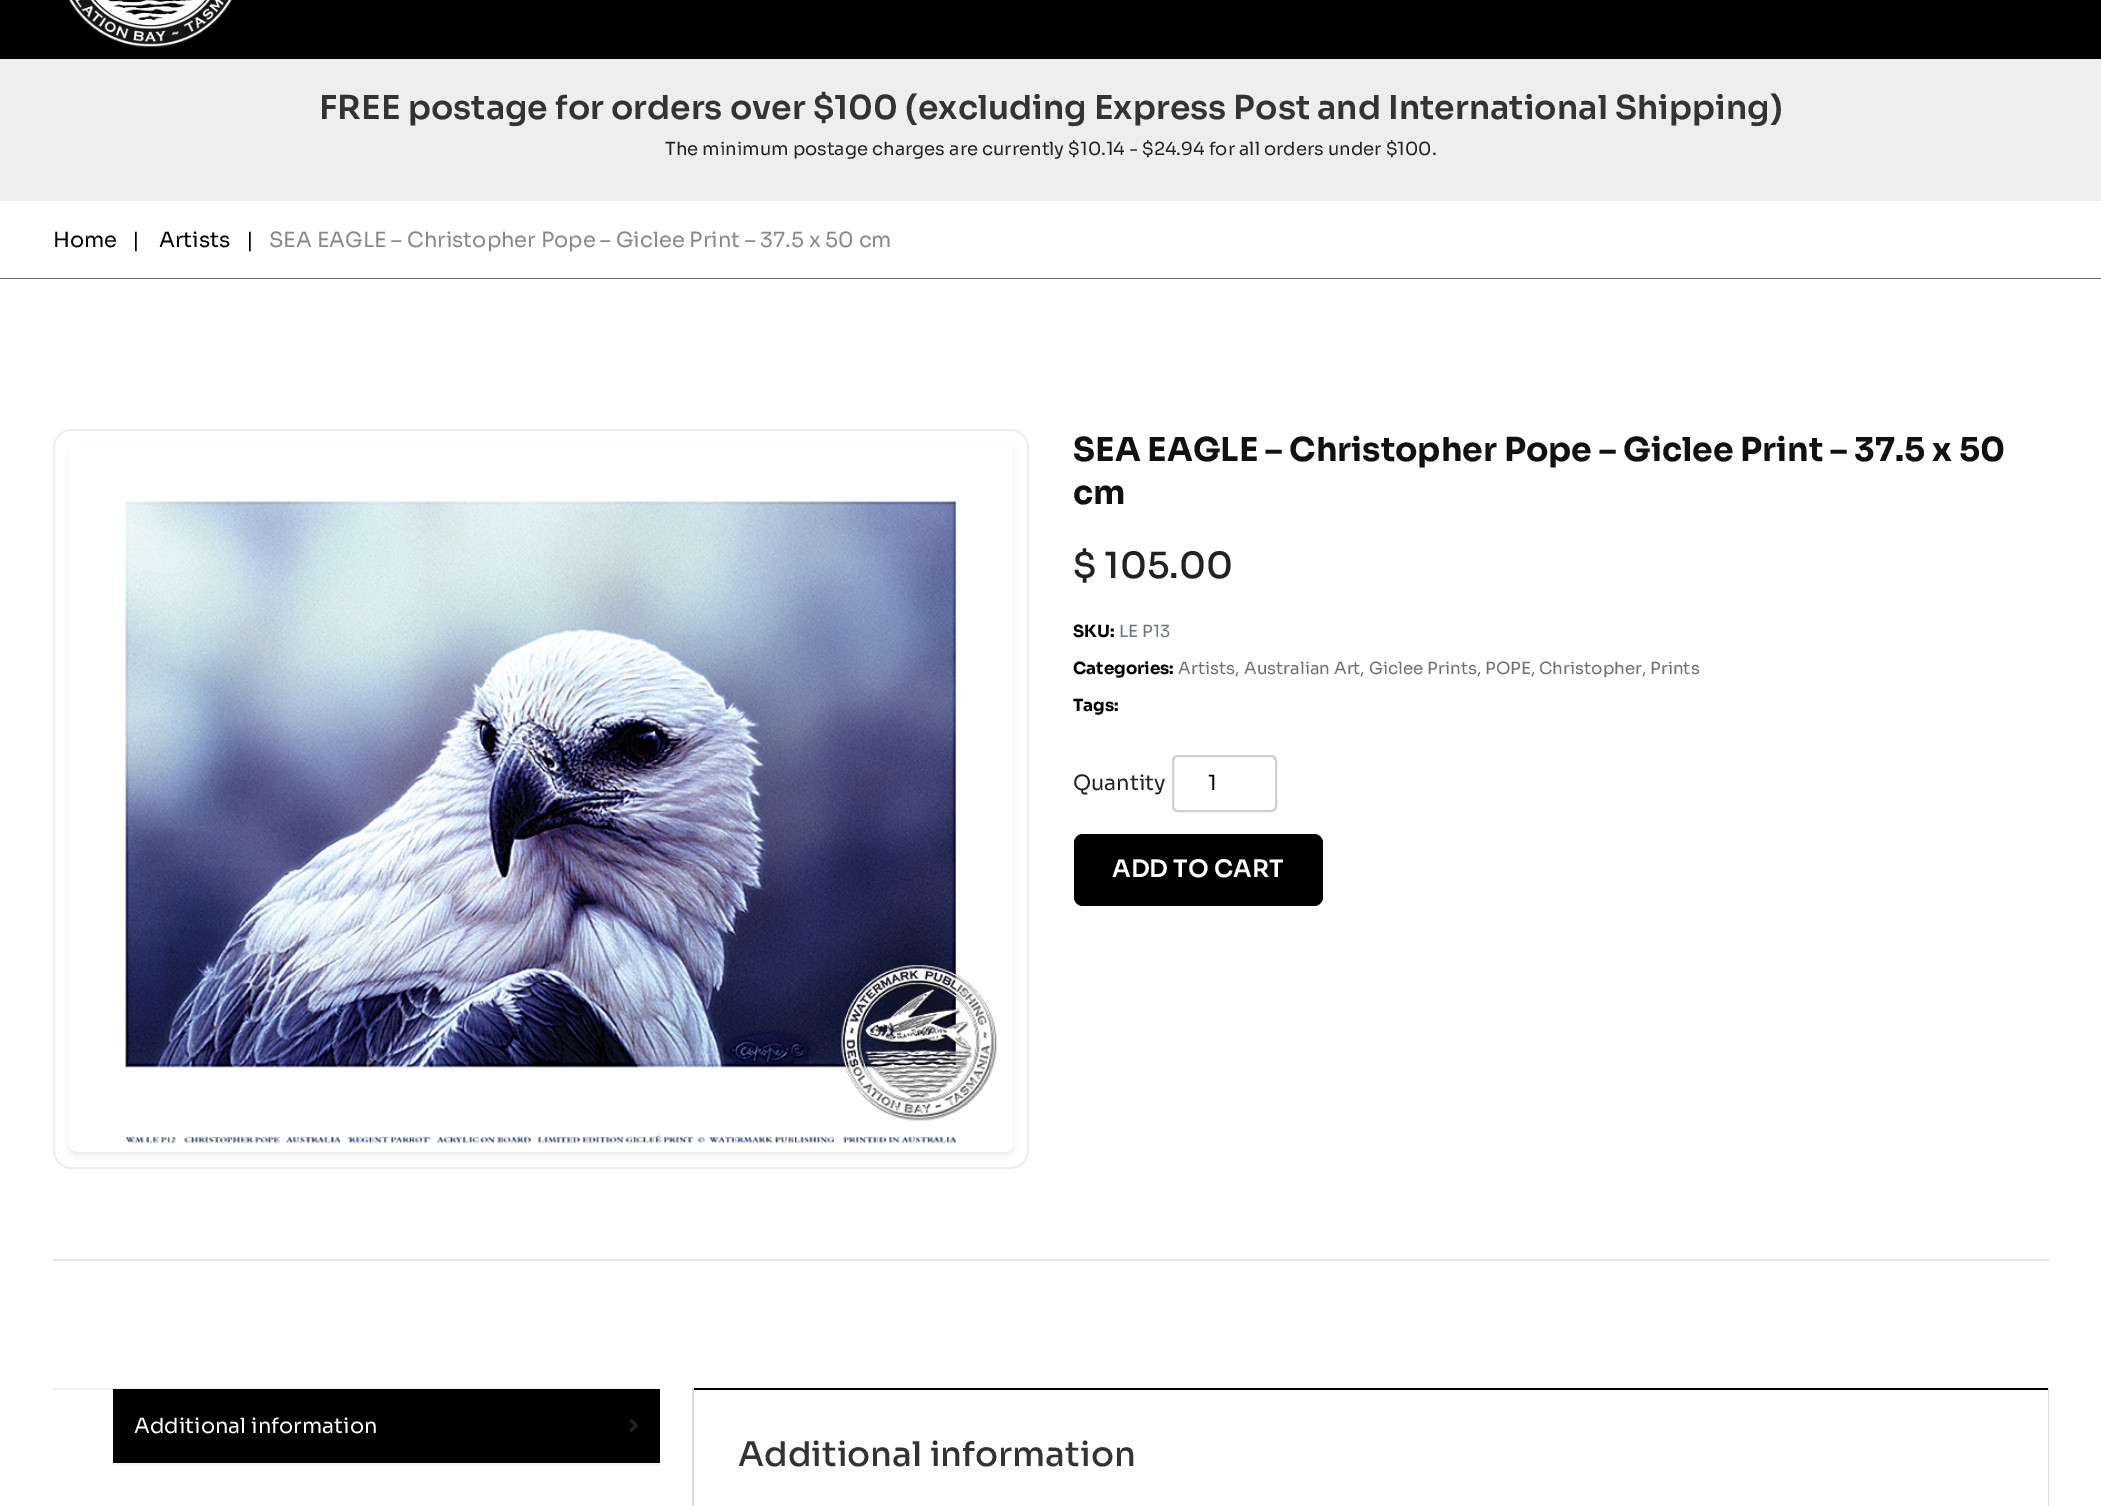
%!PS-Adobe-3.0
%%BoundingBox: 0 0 2101 1506
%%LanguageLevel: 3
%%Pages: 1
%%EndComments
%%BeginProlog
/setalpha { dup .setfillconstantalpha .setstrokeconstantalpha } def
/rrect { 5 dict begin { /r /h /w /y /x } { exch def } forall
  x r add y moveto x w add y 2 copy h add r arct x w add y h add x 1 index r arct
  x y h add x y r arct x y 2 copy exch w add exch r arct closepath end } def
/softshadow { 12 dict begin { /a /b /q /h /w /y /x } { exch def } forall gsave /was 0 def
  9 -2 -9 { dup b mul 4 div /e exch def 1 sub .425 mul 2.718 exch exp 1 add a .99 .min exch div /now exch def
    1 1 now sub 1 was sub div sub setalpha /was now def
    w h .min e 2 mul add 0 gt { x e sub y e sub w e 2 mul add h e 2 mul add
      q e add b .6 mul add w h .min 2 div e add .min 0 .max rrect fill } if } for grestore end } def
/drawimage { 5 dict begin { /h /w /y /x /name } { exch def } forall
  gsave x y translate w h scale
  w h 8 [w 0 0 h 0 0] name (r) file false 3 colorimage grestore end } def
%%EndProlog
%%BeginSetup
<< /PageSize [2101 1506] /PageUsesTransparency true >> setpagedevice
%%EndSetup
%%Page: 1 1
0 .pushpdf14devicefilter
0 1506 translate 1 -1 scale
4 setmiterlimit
0.933 setgray
0 0 2101 1506 rectfill
0 setgray
0 0 2101 59 rectfill
(images/1.raw) 68 0 165 48 drawimage
1 setgray
0 201 2101 77 rectfill
0.4 setgray
0 278 2101 1 rectfill
1 setgray
0 279 2101 1227 rectfill
0.933 setgray
2 setlinewidth
54 430 974 738 17 rrect stroke
gsave
newpath 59 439 moveto 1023 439 lineto 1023 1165 lineto 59 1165 lineto closepath 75 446 moveto 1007 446 lineto 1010.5 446 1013 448.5 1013 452 curveto 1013 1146 lineto 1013 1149.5 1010.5 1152 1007 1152 curveto 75 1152 lineto 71.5 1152 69 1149.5 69 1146 curveto 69 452 lineto 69 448.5 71.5 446 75 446 curveto closepath eoclip newpath
0 setgray
69 449 944 706 6 3 0.07 softshadow
grestore
(images/2.raw) 125 501 872 644 drawimage
0.812 setgray
1173 756 103 55 5 rrect stroke
0 setgray
1074 834 249 72 9 rrect fill
0.902 setgray
53 1259 1996 2 rectfill
0.949 setgray
53 1388 607 2 rectfill
113 1463 547 2 rectfill
0 setgray
113 1389 547 74 rectfill
(images/3.raw) 629 1418 9 14 drawimage
692 1388 1357 2 rectfill
0.867 setgray
2048 1388 1 118 rectfill
692 1388 2 118 rectfill
/Sora-SemiBold [33 0 0 -33 0 0] selectfont
0.2 setgray
319 119 moveto (FREE postage for orders over $100 \(excluding Express Post and International Shipping\)) show
/Sora-Regular [18 0 0 -18 0 0] selectfont
0.133 setgray
665 155 moveto (The minimum postage charges are currently $10.14 - $24.94 for all orders under $100.) show
/Sora-Regular [21 0 0 -21 0 0] selectfont
0 setgray
53 247 moveto (Home) show
132 247 moveto (|) show
159 247 moveto (Artists) show
246 247 moveto (|) show
0.533 setgray
269 247 moveto (SEA EAGLE – Christopher Pope – Giclee Print – 37.5 x 50 cm) show
/Sora-Bold [33 0 0 -33 0 0] selectfont
0.067 setgray
1073 461 moveto (SEA EAGLE – Christopher Pope – Giclee Print – 37.5 x 50) show
1073 504 moveto (cm) show
/Sora-Medium [36 0 0 -36 0 0] selectfont
0.133 setgray
1073 578 moveto ($ 105.00) show
/Sora-Bold [16.75 0 0 -16.75 0 0] selectfont
0 setgray
1073 637 moveto (SKU:) show
/Sora-Regular [16.75 0 0 -16.75 0 0] selectfont
0.424 0.459 0.49 setrgbcolor
1119 637 moveto (LE P13) show
/Sora-Bold [16.75 0 0 -16.75 0 0] selectfont
0 setgray
1073 674 moveto (Categories:) show
/Sora-Regular [16.75 0 0 -16.75 0 0] selectfont
0.435 setgray
1178 674 moveto (Artists) show
0.424 0.459 0.49 setrgbcolor
1235 674 moveto (,) show
0.435 setgray
1244 674 moveto (Australian Art) show
0.424 0.459 0.49 setrgbcolor
1360 674 moveto (,) show
0.435 setgray
1369 674 moveto (Giclee Prints) show
0.424 0.459 0.49 setrgbcolor
1477 674 moveto (,) show
0.435 setgray
1485 674 moveto (POPE, Christopher) show
0.424 0.459 0.49 setrgbcolor
1642 674 moveto (,) show
0.435 setgray
1650 674 moveto (Prints) show
/Sora-Bold [16.75 0 0 -16.75 0 0] selectfont
0 setgray
1073 711 moveto (Tags:) show
/Sora-Regular [21 0 0 -21 0 0] selectfont
0.133 setgray
1073 790 moveto (Quantity) show
0 setgray
1208 790 moveto (1) show
/Sora-SemiBold [24 0 0 -24 0 0] selectfont
1 setgray
1112 877 moveto (ADD TO CART) show
/Sora-Regular [21 0 0 -21 0 0] selectfont
134 1433 moveto (Additional information) show
/Sora-Medium [34 0 0 -34 0 0] selectfont
0.2 setgray
738 1466 moveto (Additional information) show
.poppdf14devicefilter showpage
%%EOF
